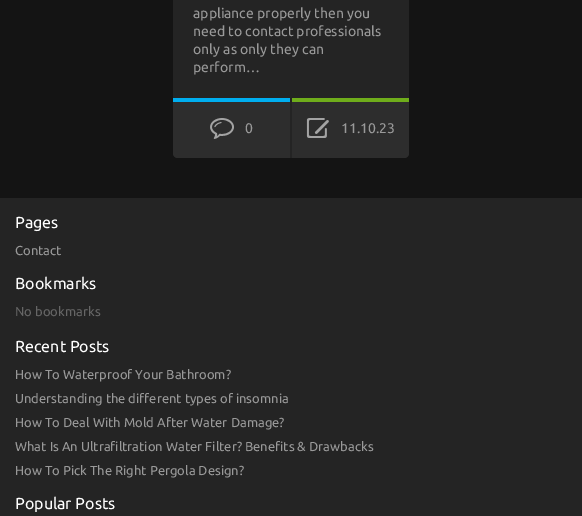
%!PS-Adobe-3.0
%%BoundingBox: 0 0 582 516
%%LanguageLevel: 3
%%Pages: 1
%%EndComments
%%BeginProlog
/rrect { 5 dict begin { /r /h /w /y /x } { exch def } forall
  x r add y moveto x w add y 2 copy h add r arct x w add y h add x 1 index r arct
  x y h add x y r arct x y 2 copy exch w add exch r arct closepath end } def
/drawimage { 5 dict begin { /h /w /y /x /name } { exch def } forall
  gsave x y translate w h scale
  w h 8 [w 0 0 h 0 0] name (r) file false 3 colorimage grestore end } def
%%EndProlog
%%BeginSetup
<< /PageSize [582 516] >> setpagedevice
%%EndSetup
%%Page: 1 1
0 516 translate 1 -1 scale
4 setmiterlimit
0.078 setgray
0 0 582 516 rectfill
0.141 setgray
173 -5 236 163 5 rrect fill
0.176 setgray
newpath 173 98 moveto 290 98 lineto 290 158 lineto 178 158 lineto 175 158 173 156 173 153 curveto closepath fill
0 0.682 0.937 setrgbcolor
173 98 117 4 rectfill
(images/1.raw) 210 118 24 21 drawimage
0.176 setgray
newpath 292 98 moveto 409 98 lineto 409 153 lineto 409 156 407 158 404 158 curveto 292 158 lineto closepath fill
0.435 0.678 0.106 setrgbcolor
292 98 117 4 rectfill
(images/2.raw) 306 118 23 20 drawimage
0.141 setgray
0 198 582 318 rectfill
/Ubuntu-Regular [14 0 0 -14 0 0] selectfont
0.6 setgray
193 18 moveto (appliance properly then you) show
193 36 moveto (need to contact professionals) show
193 54 moveto (only as only they can) show
193 72 moveto (perform…) show
245 133 moveto (0) show
341 133 moveto (11.10.23) show
/Ubuntu-Regular [16 0 0 -16 0 0] selectfont
1 setgray
15 228 moveto (Pages) show
/Ubuntu-Regular [13 0 0 -13 0 0] selectfont
0.6 setgray
15 255 moveto (Contact) show
/Ubuntu-Regular [16 0 0 -16 0 0] selectfont
1 setgray
15 289 moveto (Bookmarks) show
/Ubuntu-Regular [13 0 0 -13 0 0] selectfont
0.4 setgray
15 316 moveto (No bookmarks) show
/Ubuntu-Regular [16 0 0 -16 0 0] selectfont
1 setgray
15 352 moveto (Recent Posts) show
/Ubuntu-Regular [13 0 0 -13 0 0] selectfont
0.6 setgray
15 379 moveto (How To Waterproof Your Bathroom?) show
15 403 moveto (Understanding the different types of insomnia) show
15 427 moveto (How To Deal With Mold After Water Damage?) show
15 451 moveto (What Is An Ultrafiltration Water Filter? Benefits & Drawbacks) show
15 475 moveto (How To Pick The Right Pergola Design?) show
/Ubuntu-Regular [16 0 0 -16 0 0] selectfont
1 setgray
15 509 moveto (Popular Posts) show
showpage
%%EOF
